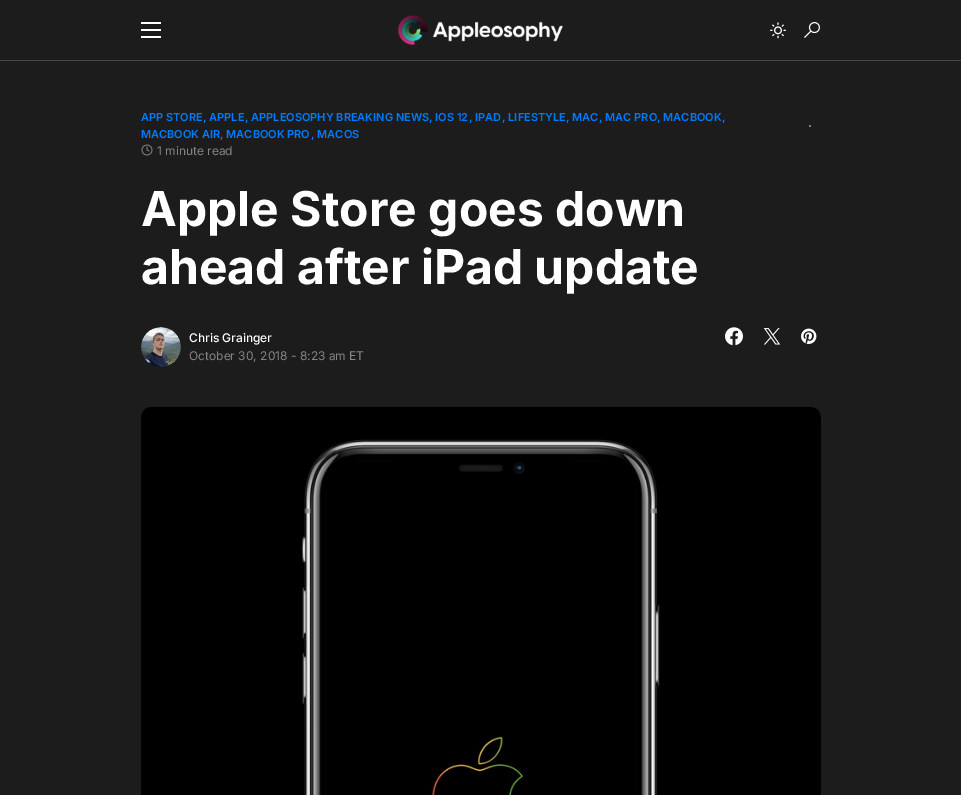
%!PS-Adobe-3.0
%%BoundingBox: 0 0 961 795
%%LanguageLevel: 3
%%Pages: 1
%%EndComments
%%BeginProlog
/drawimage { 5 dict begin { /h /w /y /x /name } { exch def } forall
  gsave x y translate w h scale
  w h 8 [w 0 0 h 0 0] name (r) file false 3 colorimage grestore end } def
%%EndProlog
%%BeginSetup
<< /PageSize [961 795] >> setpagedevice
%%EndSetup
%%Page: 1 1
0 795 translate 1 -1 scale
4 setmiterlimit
0.11 setgray
0 0 961 795 rectfill
0.286 0.286 0.294 setrgbcolor
0 60 961 1 rectfill
1 setgray
141 22 20 2 rectfill
141 29 20 2 rectfill
141 36 20 2 rectfill
(images/1.raw) 397 15 166 31 drawimage
(images/2.raw) 770 22 16 17 drawimage
(images/3.raw) 804 22 16 16 drawimage
0.522 setgray
newpath 810 126 1 0 360 arc closepath fill
(images/4.raw) 141 144 12 12 drawimage
(images/5.raw) 141 327 40 40 drawimage
(images/6.raw) 725 327 18 19 drawimage
(images/7.raw) 763 328 18 17 drawimage
(images/8.raw) 801 328 16 16 drawimage
(images/9.raw) 141 407 680 388 drawimage
/Inter-SemiBold [11 0 0 -11 0 0] selectfont
0 0.478 1 setrgbcolor
141 121 moveto (APP STORE) show
203 121 moveto (, APPLE) show
245 121 moveto (, APPLEOSOPHY BREAKING NEWS) show
429 121 moveto (, IOS 12) show
469 121 moveto (, IPAD) show
502 121 moveto (, LIFESTYLE) show
566 121 moveto (, MAC) show
599 121 moveto (, MAC PRO) show
657 121 moveto (, MACBOOK) show
722 121 moveto (,) show
141 138 moveto (MACBOOK AIR) show
220 138 moveto (, MACBOOK PRO) show
311 138 moveto (, MACOS) show
/Inter-Regular [12 0 0 -12 0 0] selectfont
0.522 setgray
157 155 moveto (1 minute read) show
/Inter-Bold [48 0 0 -48 0 0] selectfont
1 setgray
141 226 moveto (Apple Store goes down) show
141 284 moveto (ahead after iPad update) show
/Inter-Medium [12 0 0 -12 0 0] selectfont
189 342 moveto (Chris Grainger) show
/Inter-Regular [12 0 0 -12 0 0] selectfont
0.522 setgray
189 360 moveto (October 30, 2018 - 8:23 am ET) show
showpage
%%EOF
